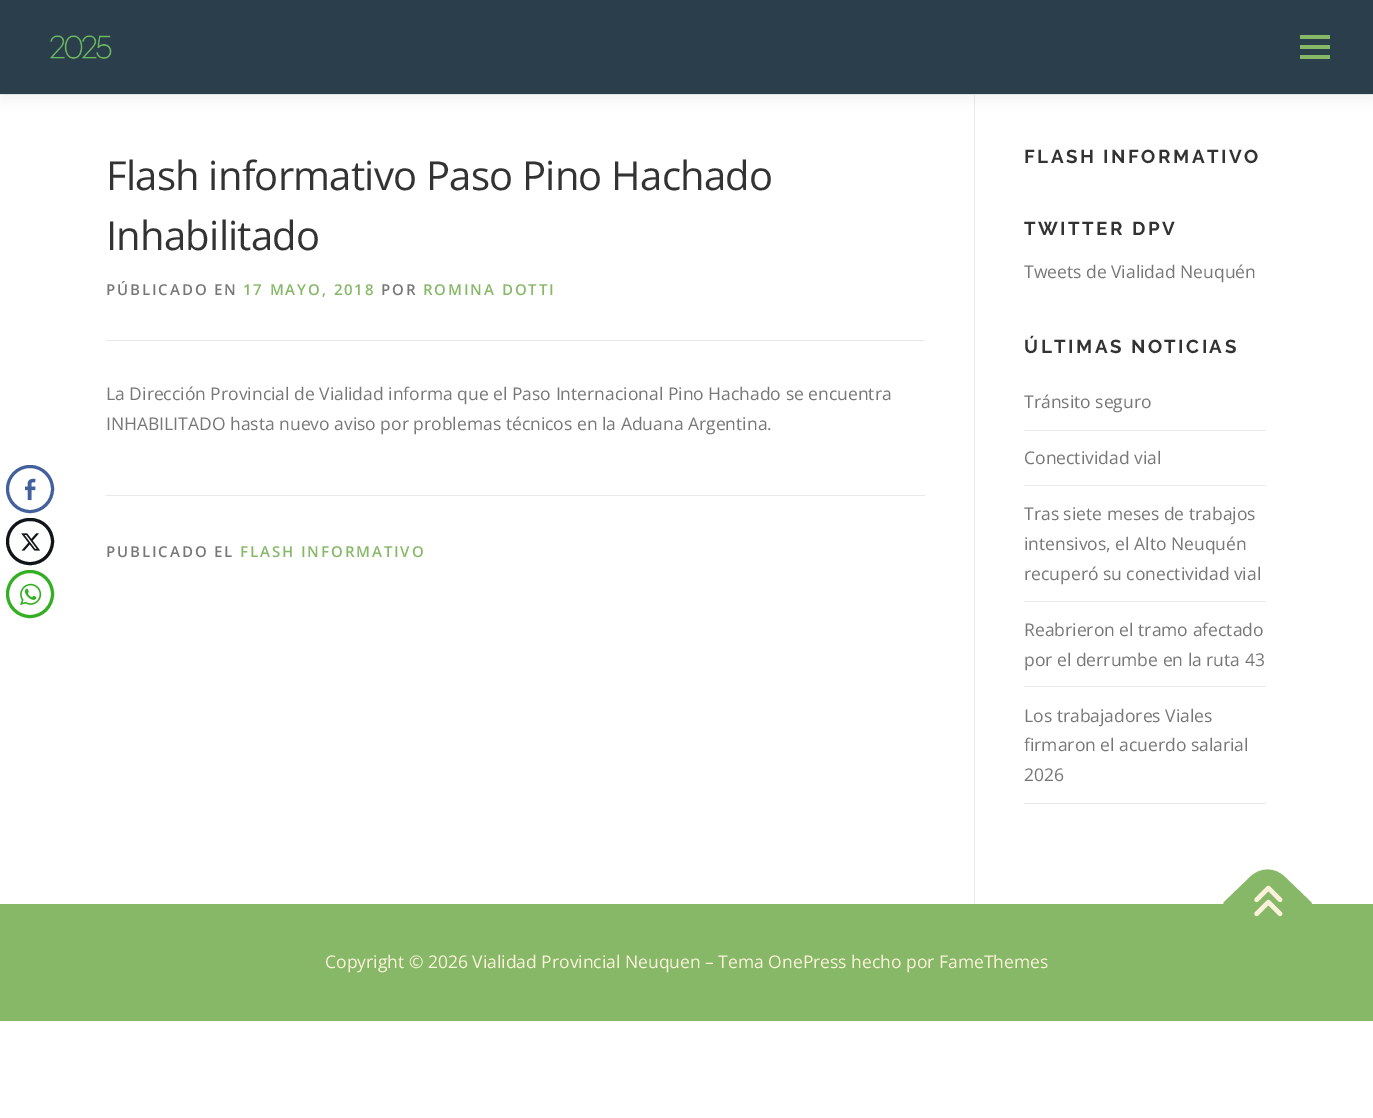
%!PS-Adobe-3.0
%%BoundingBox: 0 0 1373 1118
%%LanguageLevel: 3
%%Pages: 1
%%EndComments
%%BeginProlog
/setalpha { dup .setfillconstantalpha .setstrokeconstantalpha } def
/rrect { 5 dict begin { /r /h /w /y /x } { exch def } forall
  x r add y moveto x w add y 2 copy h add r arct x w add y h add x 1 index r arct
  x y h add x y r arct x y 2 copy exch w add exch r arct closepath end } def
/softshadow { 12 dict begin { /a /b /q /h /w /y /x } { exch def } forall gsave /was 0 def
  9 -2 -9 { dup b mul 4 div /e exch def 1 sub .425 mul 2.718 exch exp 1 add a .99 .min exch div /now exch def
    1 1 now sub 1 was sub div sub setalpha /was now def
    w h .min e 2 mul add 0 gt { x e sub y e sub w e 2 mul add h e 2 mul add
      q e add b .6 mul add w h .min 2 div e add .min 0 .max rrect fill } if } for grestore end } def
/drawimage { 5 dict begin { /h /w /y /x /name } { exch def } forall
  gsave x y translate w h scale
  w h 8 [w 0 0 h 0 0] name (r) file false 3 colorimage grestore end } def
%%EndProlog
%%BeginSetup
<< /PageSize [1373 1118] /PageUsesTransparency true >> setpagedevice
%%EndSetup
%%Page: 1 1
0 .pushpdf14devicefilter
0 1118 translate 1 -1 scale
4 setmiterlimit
1 setgray
0 0 1373 1118 rectfill
0.263 0.376 0.612 setrgbcolor
3 setlinewidth
newpath 30 489 22.5 0 360 arc closepath stroke
(images/1.raw) 25 478 11 23 drawimage
0.059 0.078 0.098 setrgbcolor
7.5 519.5 45 44 22 rrect stroke
(images/2.raw) 21 533 20 18 drawimage
0.204 0.686 0.137 setrgbcolor
newpath 30 594 22.5 0 360 arc closepath stroke
(images/3.raw) 20 583 22 22 drawimage
0.914 setgray
0 94 1373 1 rectfill
974 95 1 809 rectfill
0.196 setgray
0 6 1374 94 0 6 0.06 softshadow
0.169 0.243 0.298 setrgbcolor
0 0 1373 94 rectfill
(images/4.raw) 50 35 62 24 drawimage
0.529 0.722 0.404 setrgbcolor
1300 45 30 4 rectfill
1300 35 30 4 rectfill
1300 55 30 4 rectfill
0.914 setgray
106 340 819 1 rectfill
106 495 819 1 rectfill
1024 430 242 1 rectfill
1024 485 242 1 rectfill
1024 601 242 1 rectfill
1024 686 242 1 rectfill
1024 803 242 1 rectfill
0.529 0.722 0.404 setrgbcolor
0 904 1373 117 rectfill
newpath 1223 903 moveto 1250 877 lineto 1260 867 1275 867 1285 877 curveto 1312 903 lineto 1268 948 lineto closepath fill
(images/5.raw) 1254 885 29 32 drawimage
/OpenSans-Regular [40 0 0 -40 0 0] selectfont
0.2 setgray
106 190 moveto -0.75 0 (Flash informativo Paso Pino Hachado) ashow
106 250 moveto -0.75 0 (Inhabilitado) ashow
/OpenSans-SemiBold [15 0 0 -15 0 0] selectfont
0.467 setgray
106 295 moveto 1.9 0 (PÚBLICADO EN) ashow
0.529 0.722 0.404 setrgbcolor
243 295 moveto 1.9 0 (17 MAYO, 2018) ashow
0.467 setgray
381 295 moveto 1.9 0 (POR) ashow
0.529 0.722 0.404 setrgbcolor
423 295 moveto 1.9 0 (ROMINA DOTTI) ashow
/OpenSans-Regular [17.5 0 0 -17.5 0 0] selectfont
0.467 setgray
106 400 moveto (La Dirección Provincial de Vialidad informa que el Paso Internacional Pino Hachado se encuentra) show
106 430 moveto (INHABILITADO hasta nuevo aviso por problemas técnicos en la Aduana Argentina.) show
/OpenSans-SemiBold [15 0 0 -15 0 0] selectfont
106 557 moveto 1.9 0 (PUBLICADO EL) ashow
0.529 0.722 0.404 setrgbcolor
240 557 moveto 1.9 0 (FLASH INFORMATIVO) ashow
/Raleway-Bold [18.75 0 0 -18.75 0 0] selectfont
0.2 setgray
1024 163 moveto 2.5 0 (FLASH INFORMATIVO) ashow
1024 235 moveto 2.5 0 (TWITTER DPV) ashow
/OpenSans-Regular [17.5 0 0 -17.5 0 0] selectfont
0.467 setgray
1024 278 moveto (Tweets de Vialidad Neuquén) show
/Raleway-Bold [18.75 0 0 -18.75 0 0] selectfont
0.2 setgray
1024 353 moveto 2.5 0 (ÚLTIMAS NOTICIAS) ashow
/OpenSans-Regular [17.5 0 0 -17.5 0 0] selectfont
0.467 setgray
1024 408 moveto (Tránsito seguro) show
1024 464 moveto (Conectividad vial) show
1024 520 moveto (Tras siete meses de trabajos) show
1024 550 moveto (intensivos, el Alto Neuquén) show
1024 580 moveto (recuperó su conectividad vial) show
1024 636 moveto (Reabrieron el tramo afectado) show
1024 666 moveto (por el derrumbe en la ruta 43) show
1024 722 moveto (Los trabajadores Viales) show
1024 751 moveto (firmaron el acuerdo salarial) show
1024 781 moveto (2026) show
0.988 0.949 0.863 setrgbcolor
325 968 moveto (Copyright © 2026 Vialidad Provincial Neuquen – Tema OnePress hecho por FameThemes) show
.poppdf14devicefilter showpage
%%EOF
